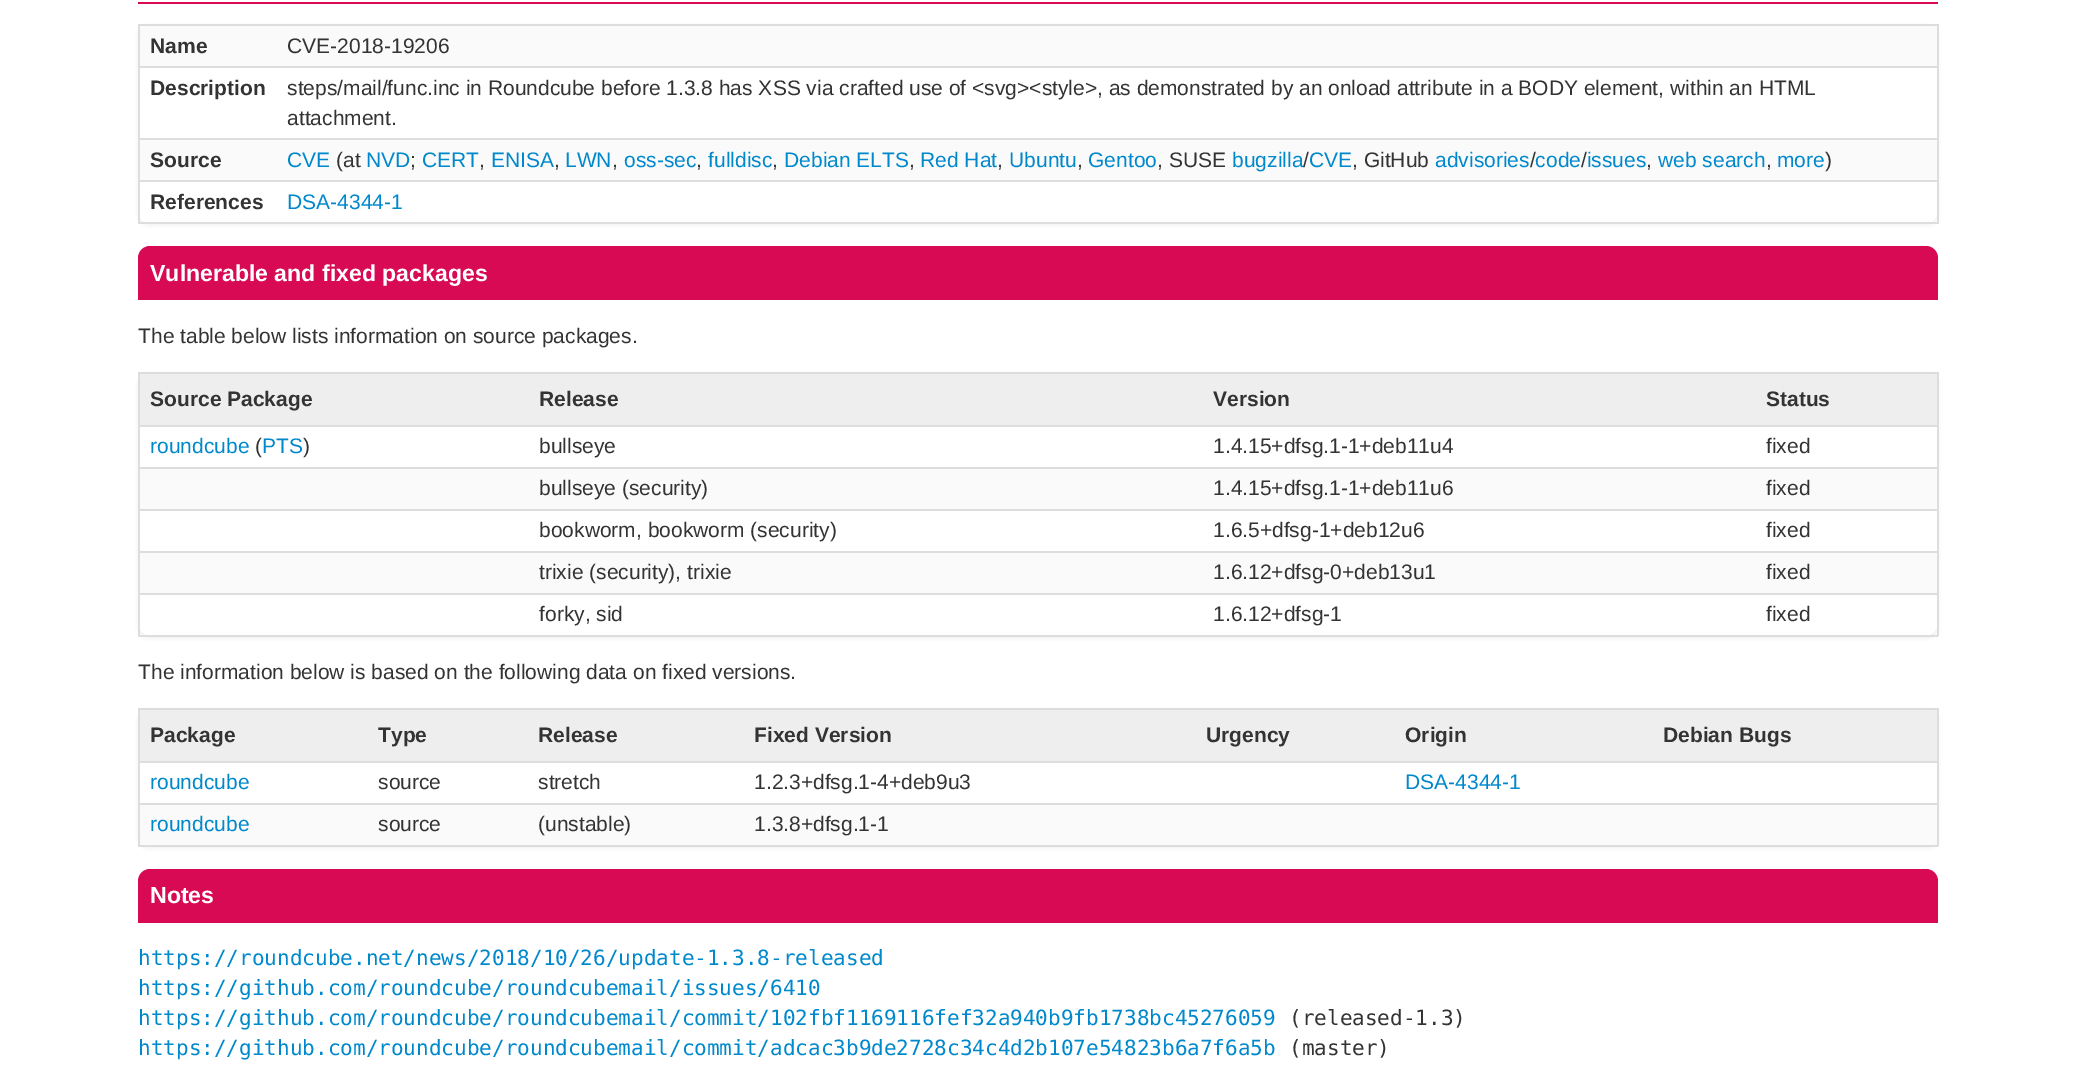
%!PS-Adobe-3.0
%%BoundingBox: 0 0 2075 1068
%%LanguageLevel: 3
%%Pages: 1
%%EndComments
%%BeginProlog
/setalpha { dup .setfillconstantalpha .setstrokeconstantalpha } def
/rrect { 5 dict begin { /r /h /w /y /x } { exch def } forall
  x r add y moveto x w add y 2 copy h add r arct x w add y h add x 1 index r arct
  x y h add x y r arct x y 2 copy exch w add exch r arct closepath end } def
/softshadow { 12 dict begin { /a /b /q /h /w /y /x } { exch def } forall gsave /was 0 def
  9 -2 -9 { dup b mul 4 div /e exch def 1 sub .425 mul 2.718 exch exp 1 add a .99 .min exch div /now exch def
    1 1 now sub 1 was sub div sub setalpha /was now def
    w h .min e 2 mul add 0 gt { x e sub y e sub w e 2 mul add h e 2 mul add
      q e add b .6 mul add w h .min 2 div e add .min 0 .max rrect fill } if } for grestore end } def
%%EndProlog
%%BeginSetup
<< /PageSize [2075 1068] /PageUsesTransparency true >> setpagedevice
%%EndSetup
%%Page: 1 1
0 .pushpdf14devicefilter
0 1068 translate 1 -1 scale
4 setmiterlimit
1 setgray
0 0 2075 1068 rectfill
0.843 0.039 0.325 setrgbcolor
138 2 1800 2 rectfill
gsave
newpath 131 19 moveto 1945 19 lineto 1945 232 lineto 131 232 lineto closepath 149 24 moveto 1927 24 lineto 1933 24 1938 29 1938 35 curveto 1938 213 lineto 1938 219 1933 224 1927 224 curveto 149 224 lineto 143 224 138 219 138 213 curveto 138 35 lineto 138 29 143 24 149 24 curveto closepath eoclip newpath
0.933 setgray
138 26 1800 199 11 2 1 softshadow
grestore
0.867 setgray
138 24 1800 2 rectfill
1937 24 2 200 rectfill
138 222 1800 2 rectfill
138 24 2 200 rectfill
0.98 setgray
140 26 1797 40 rectfill
0.867 setgray
138 66 1800 2 rectfill
138 138 1800 2 rectfill
0.98 setgray
140 140 1797 40 rectfill
0.867 setgray
138 180 1800 2 rectfill
0.843 0.039 0.325 setrgbcolor
newpath 150 246 moveto 1926 246 lineto 1932.5 246 1938 251.5 1938 258 curveto 1938 300 lineto 138 300 lineto 138 258 lineto 138 251.5 143.5 246 150 246 curveto closepath fill
gsave
newpath 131 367 moveto 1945 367 lineto 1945 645 lineto 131 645 lineto closepath 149 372 moveto 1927 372 lineto 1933 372 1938 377 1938 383 curveto 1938 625 lineto 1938 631 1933 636 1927 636 curveto 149 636 lineto 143 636 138 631 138 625 curveto 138 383 lineto 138 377 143 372 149 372 curveto closepath eoclip newpath
0.933 setgray
138 374 1800 264 11 2 1 softshadow
grestore
0.867 setgray
138 372 1800 2 rectfill
1937 372 2 264 rectfill
138 635 1800 2 rectfill
138 372 2 264 rectfill
0.933 setgray
140 374 1797 51 rectfill
0.867 setgray
138 425 1800 2 rectfill
138 467 1800 2 rectfill
0.98 setgray
140 469 1797 40 rectfill
0.867 setgray
138 509 1800 2 rectfill
138 551 1800 2 rectfill
0.98 setgray
140 553 1797 40 rectfill
0.867 setgray
138 593 1800 2 rectfill
gsave
newpath 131 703 moveto 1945 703 lineto 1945 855 lineto 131 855 lineto closepath 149 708 moveto 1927 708 lineto 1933 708 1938 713 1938 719 curveto 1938 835 lineto 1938 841 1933 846 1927 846 curveto 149 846 lineto 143 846 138 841 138 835 curveto 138 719 lineto 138 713 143 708 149 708 curveto closepath eoclip newpath
0.933 setgray
138 710 1800 138 11 2 1 softshadow
grestore
138 708 1800 2 rectfill
1937 708 2 138 rectfill
138 845 1800 2 rectfill
138 708 2 138 rectfill
0.933 setgray
140 710 1797 51 rectfill
0.867 setgray
138 761 1800 2 rectfill
138 803 1800 2 rectfill
0.98 setgray
140 805 1797 40 rectfill
0.843 0.039 0.325 setrgbcolor
newpath 150 869 moveto 1926 869 lineto 1932.5 869 1938 874.5 1938 881 curveto 1938 923 lineto 138 923 lineto 138 881 lineto 138 874.5 143.5 869 150 869 curveto closepath fill
/LiberationSans-Bold [21 0 0 -21 0 0] selectfont
0.2 setgray
150 53 moveto (Name) show
/LiberationSans-Regular [21 0 0 -21 0 0] selectfont
287 53 moveto (CVE-2018-19206) show
/LiberationSans-Bold [21 0 0 -21 0 0] selectfont
150 95 moveto (Description) show
/LiberationSans-Regular [21 0 0 -21 0 0] selectfont
287 95 moveto (steps/mail/func.inc in Roundcube before 1.3.8 has XSS via crafted use of <svg><style>, as demonstrated by an onload attribute in a BODY element, within an HTML) show
287 125 moveto (attachment.) show
/LiberationSans-Bold [21 0 0 -21 0 0] selectfont
150 167 moveto (Source) show
/LiberationSans-Regular [21 0 0 -21 0 0] selectfont
336 167 moveto (\(at) show
0 0.533 0.8 setrgbcolor
708 167 moveto (fulldisc) show
784 167 moveto (Debian ELTS) show
920 167 moveto (Red Hat) show
1009 167 moveto (Ubuntu) show
1232 167 moveto (bugzilla CVE) show
0.2 setgray
1303 167 moveto (/) show
1352 167 moveto (, GitHub) show
0 0.533 0.8 setrgbcolor
1435 167 moveto (advisories code issues) show
287 167 moveto (CVE) show
366 167 moveto (NVD) show
0.2 setgray
410 167 moveto (;) show
0 0.533 0.8 setrgbcolor
422 167 moveto (CERT) show
0.2 setgray
479 167 moveto (,) show
0 0.533 0.8 setrgbcolor
491 167 moveto (ENISA) show
0.2 setgray
554 167 moveto (,) show
0 0.533 0.8 setrgbcolor
565 167 moveto (LWN) show
0.2 setgray
612 167 moveto (,) show
0 0.533 0.8 setrgbcolor
624 167 moveto (oss-sec) show
0.2 setgray
696 167 moveto (,) show
772 167 moveto (,) show
909 167 moveto (,) show
997 167 moveto (,) show
1077 167 moveto (,) show
0 0.533 0.8 setrgbcolor
1088 167 moveto (Gentoo) show
0.2 setgray
1157 167 moveto (, SUSE) show
1530 167 moveto (/) show
1581 167 moveto (/) show
1646 167 moveto (,) show
0 0.533 0.8 setrgbcolor
1658 167 moveto (web search) show
0.2 setgray
1766 167 moveto (,) show
0 0.533 0.8 setrgbcolor
1777 167 moveto (more) show
0.2 setgray
1825 167 moveto (\)) show
/LiberationSans-Bold [21 0 0 -21 0 0] selectfont
150 209 moveto (References) show
/LiberationSans-Regular [21 0 0 -21 0 0] selectfont
0 0.533 0.8 setrgbcolor
287 209 moveto (DSA-4344-1) show
/LiberationSans-Bold [23.1 0 0 -23.1 0 0] selectfont
1 setgray
150 281 moveto (Vulnerable and fixed packages) show
/LiberationSans-Regular [21 0 0 -21 0 0] selectfont
0.2 setgray
138 343 moveto (The table below lists information on source packages.) show
/LiberationSans-Bold [21 0 0 -21 0 0] selectfont
150 406 moveto (Source Package) show
539 406 moveto (Release) show
1213 406 moveto (Version) show
1766 406 moveto (Status) show
/LiberationSans-Regular [21 0 0 -21 0 0] selectfont
0 0.533 0.8 setrgbcolor
150 453 moveto (roundcube) show
0.2 setgray
255 453 moveto (\() show
0 0.533 0.8 setrgbcolor
262 453 moveto (PTS) show
0.2 setgray
303 453 moveto (\)) show
539 453 moveto (bullseye) show
1213 453 moveto (1.4.15+dfsg.1-1+deb11u4) show
1766 453 moveto (fixed) show
539 495 moveto (bullseye \(security\)) show
1213 495 moveto (1.4.15+dfsg.1-1+deb11u6) show
1766 495 moveto (fixed) show
539 537 moveto (bookworm, bookworm \(security\)) show
1213 537 moveto (1.6.5+dfsg-1+deb12u6) show
1766 537 moveto (fixed) show
539 579 moveto (trixie \(security\), trixie) show
1213 579 moveto (1.6.12+dfsg-0+deb13u1) show
1766 579 moveto (fixed) show
539 621 moveto (forky, sid) show
1213 621 moveto (1.6.12+dfsg-1) show
1766 621 moveto (fixed) show
138 679 moveto (The information below is based on the following data on fixed versions.) show
/LiberationSans-Bold [21 0 0 -21 0 0] selectfont
150 742 moveto (Package) show
378 742 moveto (Type) show
538 742 moveto (Release) show
754 742 moveto (Fixed Version) show
1206 742 moveto (Urgency) show
1405 742 moveto (Origin) show
1663 742 moveto (Debian Bugs) show
/LiberationSans-Regular [21 0 0 -21 0 0] selectfont
0 0.533 0.8 setrgbcolor
150 789 moveto (roundcube) show
0.2 setgray
378 789 moveto (source) show
538 789 moveto (stretch) show
754 789 moveto (1.2.3+dfsg.1-4+deb9u3) show
0 0.533 0.8 setrgbcolor
1405 789 moveto (DSA-4344-1) show
150 831 moveto (roundcube) show
0.2 setgray
378 831 moveto (source) show
538 831 moveto (\(unstable\)) show
754 831 moveto (1.3.8+dfsg.1-1) show
/LiberationSans-Bold [23.1 0 0 -23.1 0 0] selectfont
1 setgray
150 903 moveto (Notes) show
/DejaVuSansMono-Regular [21 0 0 -21 0 0] selectfont
0 0.533 0.8 setrgbcolor
138 965 moveto (https://roundcube.net/news/2018/10/26/update-1.3.8-released) show
138 995 moveto (https://github.com/roundcube/roundcubemail/issues/6410) show
138 1025 moveto (https://github.com/roundcube/roundcubemail/commit/102fbf1169116fef32a940b9fb1738bc45276059) show
0.2 setgray
1289 1025 moveto (\(released-1.3\)) show
0 0.533 0.8 setrgbcolor
138 1055 moveto (https://github.com/roundcube/roundcubemail/commit/adcac3b9de2728c34c4d2b107e54823b6a7f6a5b) show
0.2 setgray
1289 1055 moveto (\(master\)) show
.poppdf14devicefilter showpage
%%EOF
